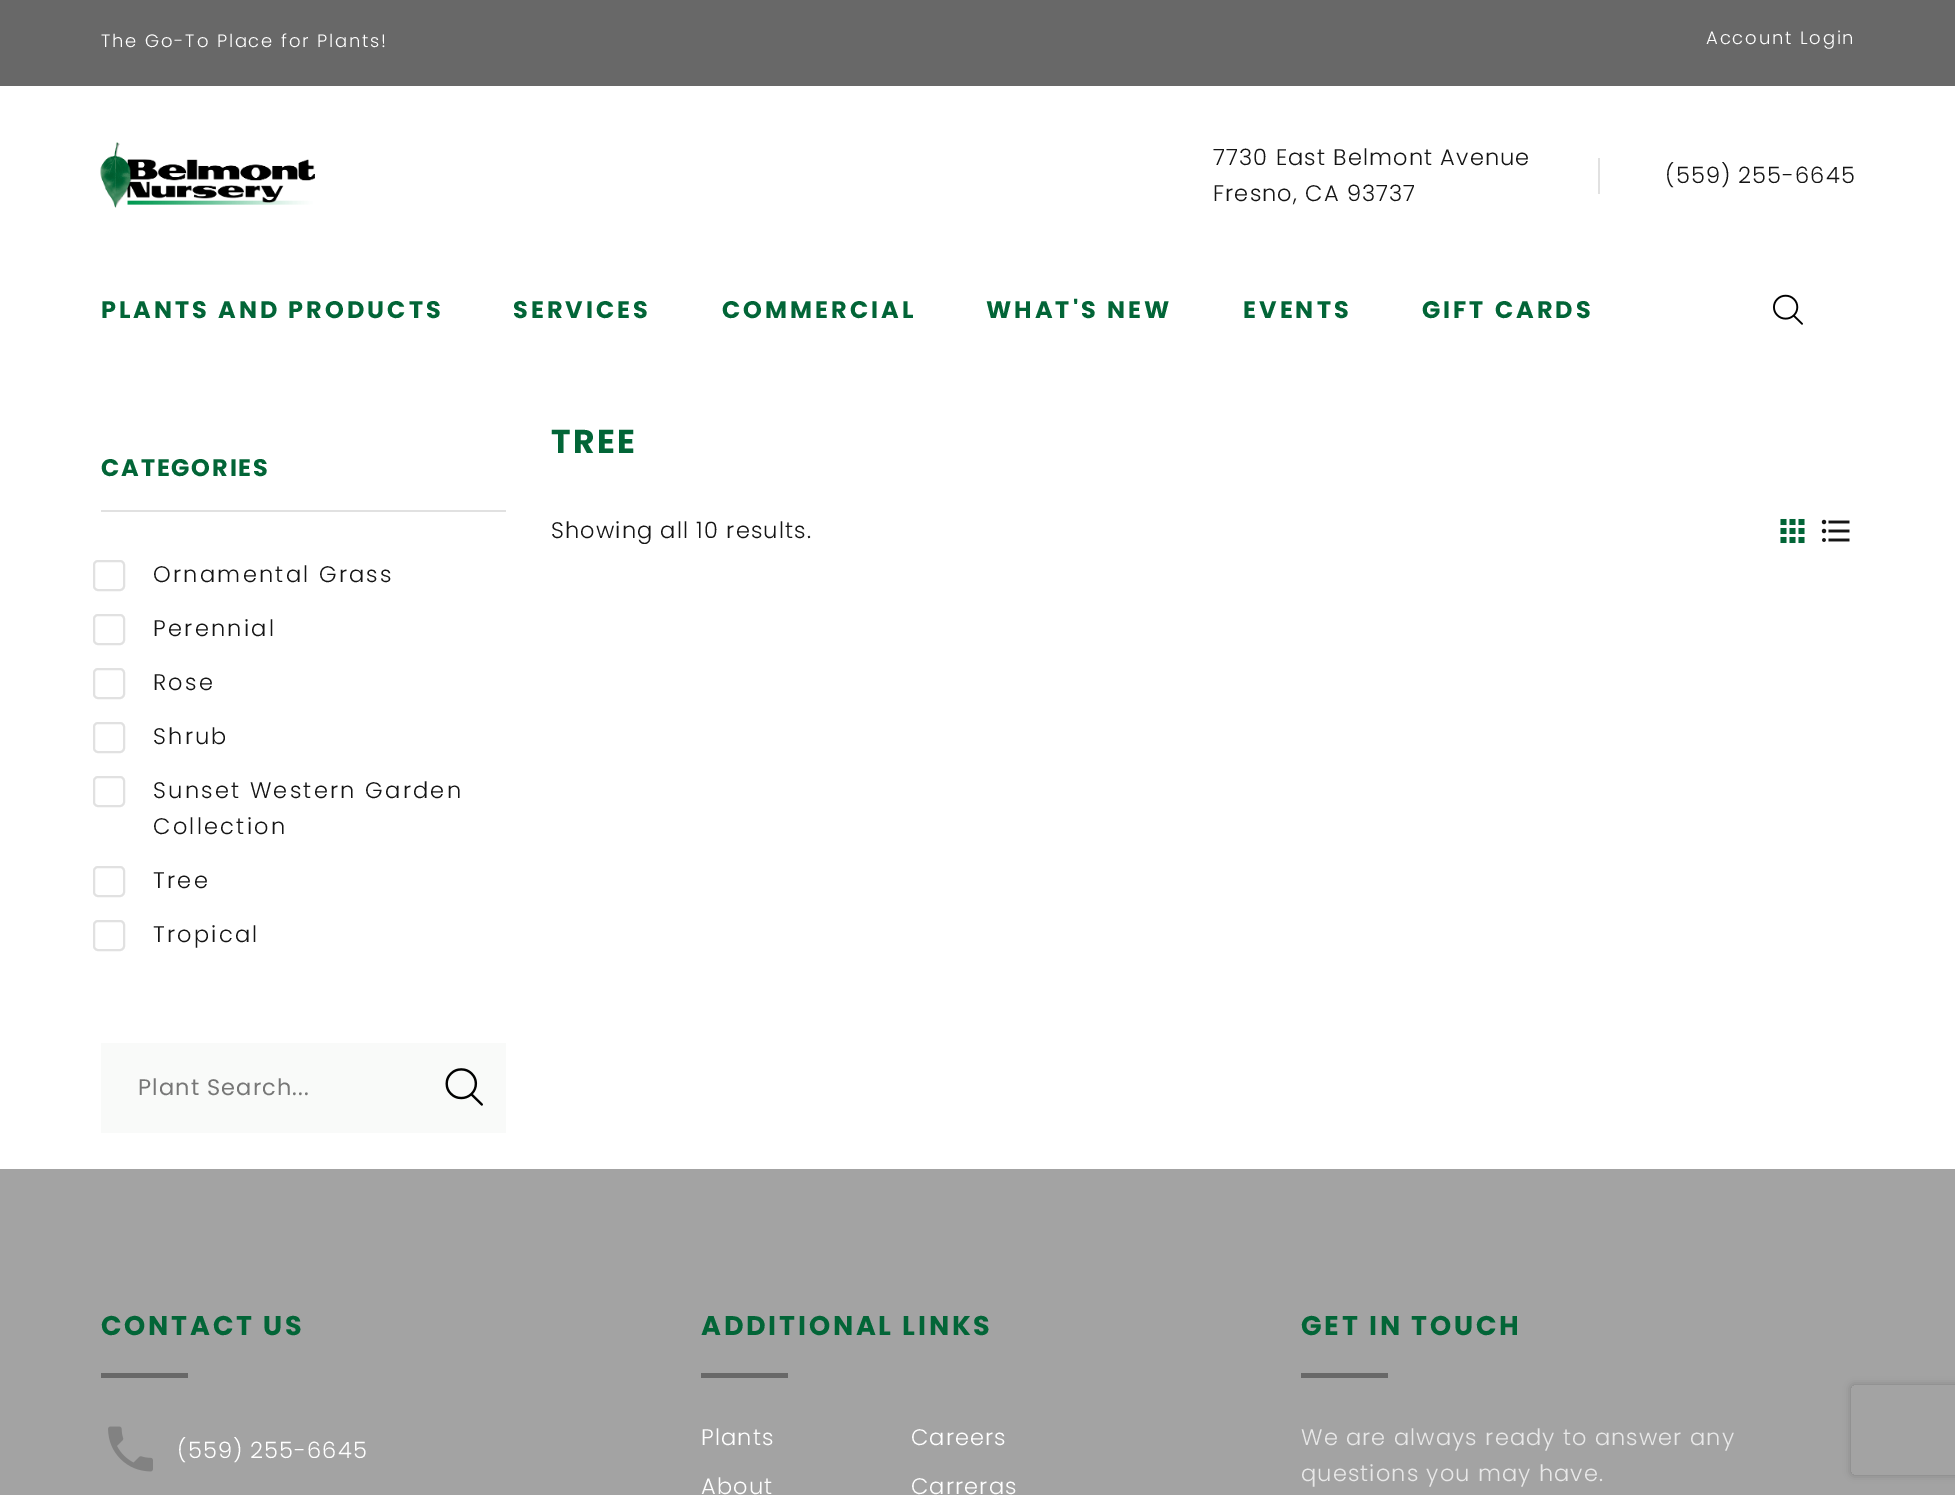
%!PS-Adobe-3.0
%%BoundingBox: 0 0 1955 1495
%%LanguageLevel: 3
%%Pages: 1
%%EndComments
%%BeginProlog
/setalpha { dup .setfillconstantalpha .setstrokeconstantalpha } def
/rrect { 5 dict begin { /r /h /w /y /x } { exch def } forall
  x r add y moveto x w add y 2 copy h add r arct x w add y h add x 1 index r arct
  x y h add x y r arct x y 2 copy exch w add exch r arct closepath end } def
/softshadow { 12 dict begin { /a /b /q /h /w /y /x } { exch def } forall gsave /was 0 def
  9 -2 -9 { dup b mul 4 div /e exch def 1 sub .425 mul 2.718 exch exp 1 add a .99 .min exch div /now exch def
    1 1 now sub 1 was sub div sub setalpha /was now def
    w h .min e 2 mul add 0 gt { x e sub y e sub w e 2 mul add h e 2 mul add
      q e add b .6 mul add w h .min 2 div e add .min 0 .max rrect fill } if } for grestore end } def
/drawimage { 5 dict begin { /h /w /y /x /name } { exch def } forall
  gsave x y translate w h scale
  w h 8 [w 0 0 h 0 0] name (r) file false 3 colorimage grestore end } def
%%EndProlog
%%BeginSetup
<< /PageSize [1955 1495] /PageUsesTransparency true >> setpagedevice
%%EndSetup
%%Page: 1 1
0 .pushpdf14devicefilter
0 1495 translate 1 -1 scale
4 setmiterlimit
1 setgray
0 0 1955 1495 rectfill
0.408 setgray
0 0 1955 86 rectfill
(images/1.raw) 100 142 215 66 drawimage
0.882 setgray
1598 158 2 36 rectfill
(images/2.raw) 1773 294 30 31 drawimage
101 510 405 2 rectfill
2 setlinewidth
94 561 30 29 4 rrect stroke
94 615 30 29 4 rrect stroke
94 669 30 29 4 rrect stroke
94 723 30 29 4 rrect stroke
94 777 30 29 4 rrect stroke
94 867 30 29 4 rrect stroke
94 921 30 29 4 rrect stroke
0.976 0.98 0.976 setrgbcolor
101 1043 405 90 rectfill
(images/3.raw) 445 1068 38 38 drawimage
(images/4.raw) 1780 518 25 26 drawimage
(images/5.raw) 1821 519 29 23 drawimage
0.639 setgray
0 1169 1955 326 rectfill
0.408 setgray
101 1373 87 5 rectfill
(images/6.raw) 108 1426 45 46 drawimage
701 1373 87 5 rectfill
1301 1373 87 5 rectfill
gsave
newpath 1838 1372 moveto 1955 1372 lineto 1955 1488 lineto 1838 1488 lineto closepath 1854 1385 moveto 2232 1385 lineto 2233.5 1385 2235 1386.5 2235 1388 curveto 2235 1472 lineto 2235 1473.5 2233.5 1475 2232 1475 curveto 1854 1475 lineto 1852.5 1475 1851 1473.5 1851 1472 curveto 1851 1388 lineto 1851 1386.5 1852.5 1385 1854 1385 curveto closepath eoclip newpath
0.502 setgray
1851 1385 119 90 3 4 1 softshadow
grestore
/Poppins-Light [18 0 0 -18 0 0] selectfont
1 setgray
101 47 moveto 1.8 0 (The Go-To Place for Plants!) ashow
1706 44 moveto 1.8 0 (Account Login) ashow
/Poppins-Light [22.5 0 0 -22.5 0 0] selectfont
0.082 setgray
1213 165 moveto 1.1 0 (7730 East Belmont Avenue) ashow
1213 201 moveto 1.1 0 (Fresno, CA 93737) ashow
1665 183 moveto 1.1 0 (\(559\) 255-6645) ashow
/Poppins-Bold [24 0 0 -24 0 0] selectfont
0.008 0.396 0.216 setrgbcolor
101 318 moveto 3 0 (PLANTS AND PRODUCTS) ashow
513 318 moveto 3 0 (SERVICES) ashow
722 318 moveto 3 0 (COMMERCIAL) ashow
986 318 moveto 3 0 (WHAT'S NEW) ashow
1243 318 moveto 3 0 (EVENTS) ashow
1422 318 moveto 3 0 (GIFT CARDS) ashow
101 476 moveto 1.8 0 (CATEGORIES) ashow
/Poppins-Light [22.5 0 0 -22.5 0 0] selectfont
0.082 setgray
153 582 moveto 2.25 0 (Ornamental Grass) ashow
153 636 moveto 2.25 0 (Perennial) ashow
153 690 moveto 2.25 0 (Rose) ashow
153 744 moveto 2.25 0 (Shrub) ashow
153 798 moveto 2.25 0 (Sunset Western Garden) ashow
153 834 moveto 2.25 0 (Collection) ashow
153 888 moveto 2.25 0 (Tree) ashow
153 942 moveto 2.25 0 (Tropical) ashow
/Poppins-Regular [22.5 0 0 -22.5 0 0] selectfont
0.467 setgray
138 1095 moveto 1.1 0 (Plant Search...) ashow
/Poppins-Bold [33 0 0 -33 0 0] selectfont
0.008 0.396 0.216 setrgbcolor
551 453 moveto 2.5 0 (TREE) ashow
/Poppins-Light [22.5 0 0 -22.5 0 0] selectfont
0.082 setgray
551 538 moveto 1.1 0 (Showing all 10 results.) ashow
/Poppins-Bold [27 0 0 -27 0 0] selectfont
0.008 0.396 0.216 setrgbcolor
101 1335 moveto 2.75 0 (CONTACT US) ashow
/Poppins-Light [22.5 0 0 -22.5 0 0] selectfont
1 setgray
177 1458 moveto 1.1 0 (\(559\) 255-6645) ashow
/Poppins-Bold [27 0 0 -27 0 0] selectfont
0.008 0.396 0.216 setrgbcolor
701 1335 moveto 2.75 0 (ADDITIONAL LINKS) ashow
/Poppins-Light [22.5 0 0 -22.5 0 0] selectfont
1 setgray
701 1445 moveto 1.1 0 (Plants) ashow
911 1445 moveto 1.1 0 (Careers) ashow
701 1494 moveto 1.1 0 (About) ashow
911 1494 moveto 1.1 0 (Carreras) ashow
/Poppins-Bold [27 0 0 -27 0 0] selectfont
0.008 0.396 0.216 setrgbcolor
1301 1335 moveto 2.75 0 (GET IN TOUCH) ashow
/Poppins-Light [22.5 0 0 -22.5 0 0] selectfont
0.91 setgray
1301 1445 moveto 1.1 0 (We are always ready to answer any) ashow
1301 1481 moveto 1.1 0 (questions you may have.) ashow
.poppdf14devicefilter showpage
%%EOF
